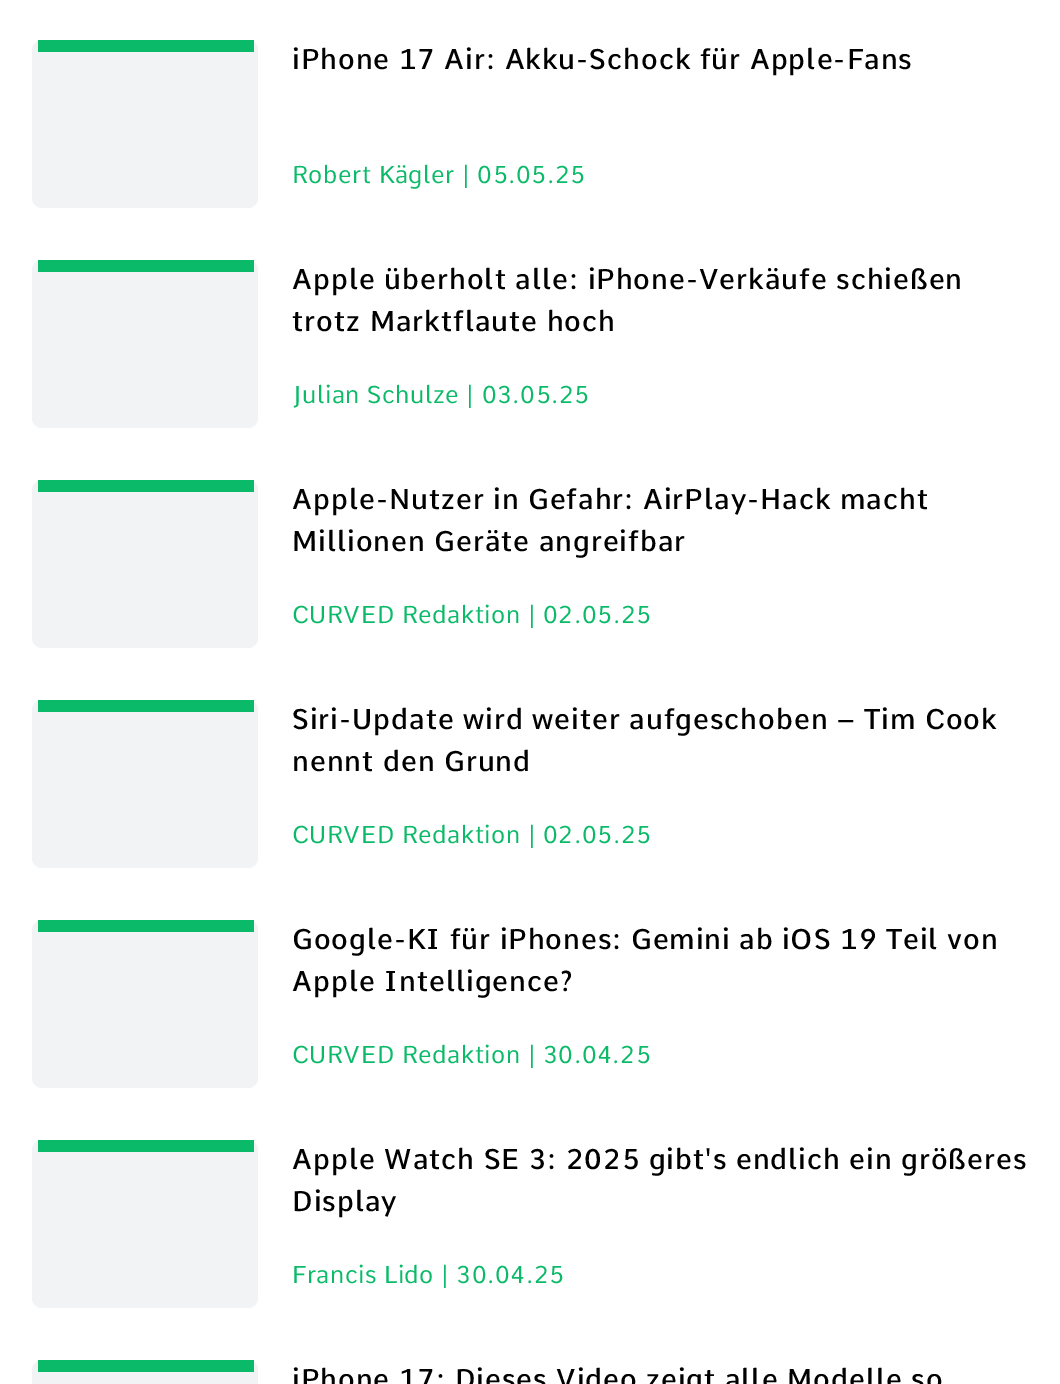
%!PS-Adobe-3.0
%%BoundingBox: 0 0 1060 1384
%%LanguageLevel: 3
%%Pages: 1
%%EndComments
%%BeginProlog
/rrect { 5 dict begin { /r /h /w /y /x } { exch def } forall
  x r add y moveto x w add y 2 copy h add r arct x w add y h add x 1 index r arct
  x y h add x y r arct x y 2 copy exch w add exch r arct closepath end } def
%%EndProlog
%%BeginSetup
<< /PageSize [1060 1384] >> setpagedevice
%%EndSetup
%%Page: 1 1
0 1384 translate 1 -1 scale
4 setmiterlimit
1 setgray
0 0 1060 1384 rectfill
0.945 0.953 0.961 setrgbcolor
32 40 226 168 10 rrect fill
0.043 0.729 0.408 setrgbcolor
38 40 216 12 rectfill
0.945 0.953 0.961 setrgbcolor
32 260 226 168 10 rrect fill
0.043 0.729 0.408 setrgbcolor
38 260 216 12 rectfill
0.945 0.953 0.961 setrgbcolor
32 480 226 168 10 rrect fill
0.043 0.729 0.408 setrgbcolor
38 480 216 12 rectfill
0.945 0.953 0.961 setrgbcolor
32 700 226 168 10 rrect fill
0.043 0.729 0.408 setrgbcolor
38 700 216 12 rectfill
0.945 0.953 0.961 setrgbcolor
32 920 226 168 10 rrect fill
0.043 0.729 0.408 setrgbcolor
38 920 216 12 rectfill
0.945 0.953 0.961 setrgbcolor
32 1140 226 168 10 rrect fill
0.043 0.729 0.408 setrgbcolor
38 1140 216 12 rectfill
0.945 0.953 0.961 setrgbcolor
32 1360 226 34 10 rrect fill
0.043 0.729 0.408 setrgbcolor
38 1360 216 12 rectfill
/Comme-Medium [28 0 0 -28 0 0] selectfont
0 setgray
292 69 moveto 1 0 (iPhone 17 Air: Akku-Schock für Apple-Fans) ashow
/Comme-Regular [24 0 0 -24 0 0] selectfont
0.043 0.729 0.408 setrgbcolor
292 183 moveto 0.6 0 (Robert Kägler | 05.05.25) ashow
/Comme-Medium [28 0 0 -28 0 0] selectfont
0 setgray
292 289 moveto 1 0 (Apple überholt alle: iPhone-Verkäufe schießen) ashow
292 331 moveto 1 0 (trotz Marktflaute hoch) ashow
/Comme-Regular [24 0 0 -24 0 0] selectfont
0.043 0.729 0.408 setrgbcolor
292 403 moveto 0.6 0 (Julian Schulze | 03.05.25) ashow
/Comme-Medium [28 0 0 -28 0 0] selectfont
0 setgray
292 509 moveto 1 0 (Apple-Nutzer in Gefahr: AirPlay-Hack macht) ashow
292 551 moveto 1 0 (Millionen Geräte angreifbar) ashow
/Comme-Regular [24 0 0 -24 0 0] selectfont
0.043 0.729 0.408 setrgbcolor
292 623 moveto 0.6 0 (CURVED Redaktion | 02.05.25) ashow
/Comme-Medium [28 0 0 -28 0 0] selectfont
0 setgray
292 729 moveto 1 0 (Siri-Update wird weiter aufgeschoben – Tim Cook) ashow
292 771 moveto 1 0 (nennt den Grund) ashow
/Comme-Regular [24 0 0 -24 0 0] selectfont
0.043 0.729 0.408 setrgbcolor
292 843 moveto 0.6 0 (CURVED Redaktion | 02.05.25) ashow
/Comme-Medium [28 0 0 -28 0 0] selectfont
0 setgray
292 949 moveto 1 0 (Google-KI für iPhones: Gemini ab iOS 19 Teil von) ashow
292 991 moveto 1 0 (Apple Intelligence?) ashow
/Comme-Regular [24 0 0 -24 0 0] selectfont
0.043 0.729 0.408 setrgbcolor
292 1063 moveto 0.6 0 (CURVED Redaktion | 30.04.25) ashow
/Comme-Medium [28 0 0 -28 0 0] selectfont
0 setgray
292 1169 moveto 1 0 (Apple Watch SE 3: 2025 gibt's endlich ein größeres) ashow
292 1211 moveto 1 0 (Display) ashow
/Comme-Regular [24 0 0 -24 0 0] selectfont
0.043 0.729 0.408 setrgbcolor
292 1283 moveto 0.6 0 (Francis Lido | 30.04.25) ashow
/Comme-Medium [28 0 0 -28 0 0] selectfont
0 setgray
292 1389 moveto 1 0 (iPhone 17: Dieses Video zeigt alle Modelle so) ashow
showpage
%%EOF
